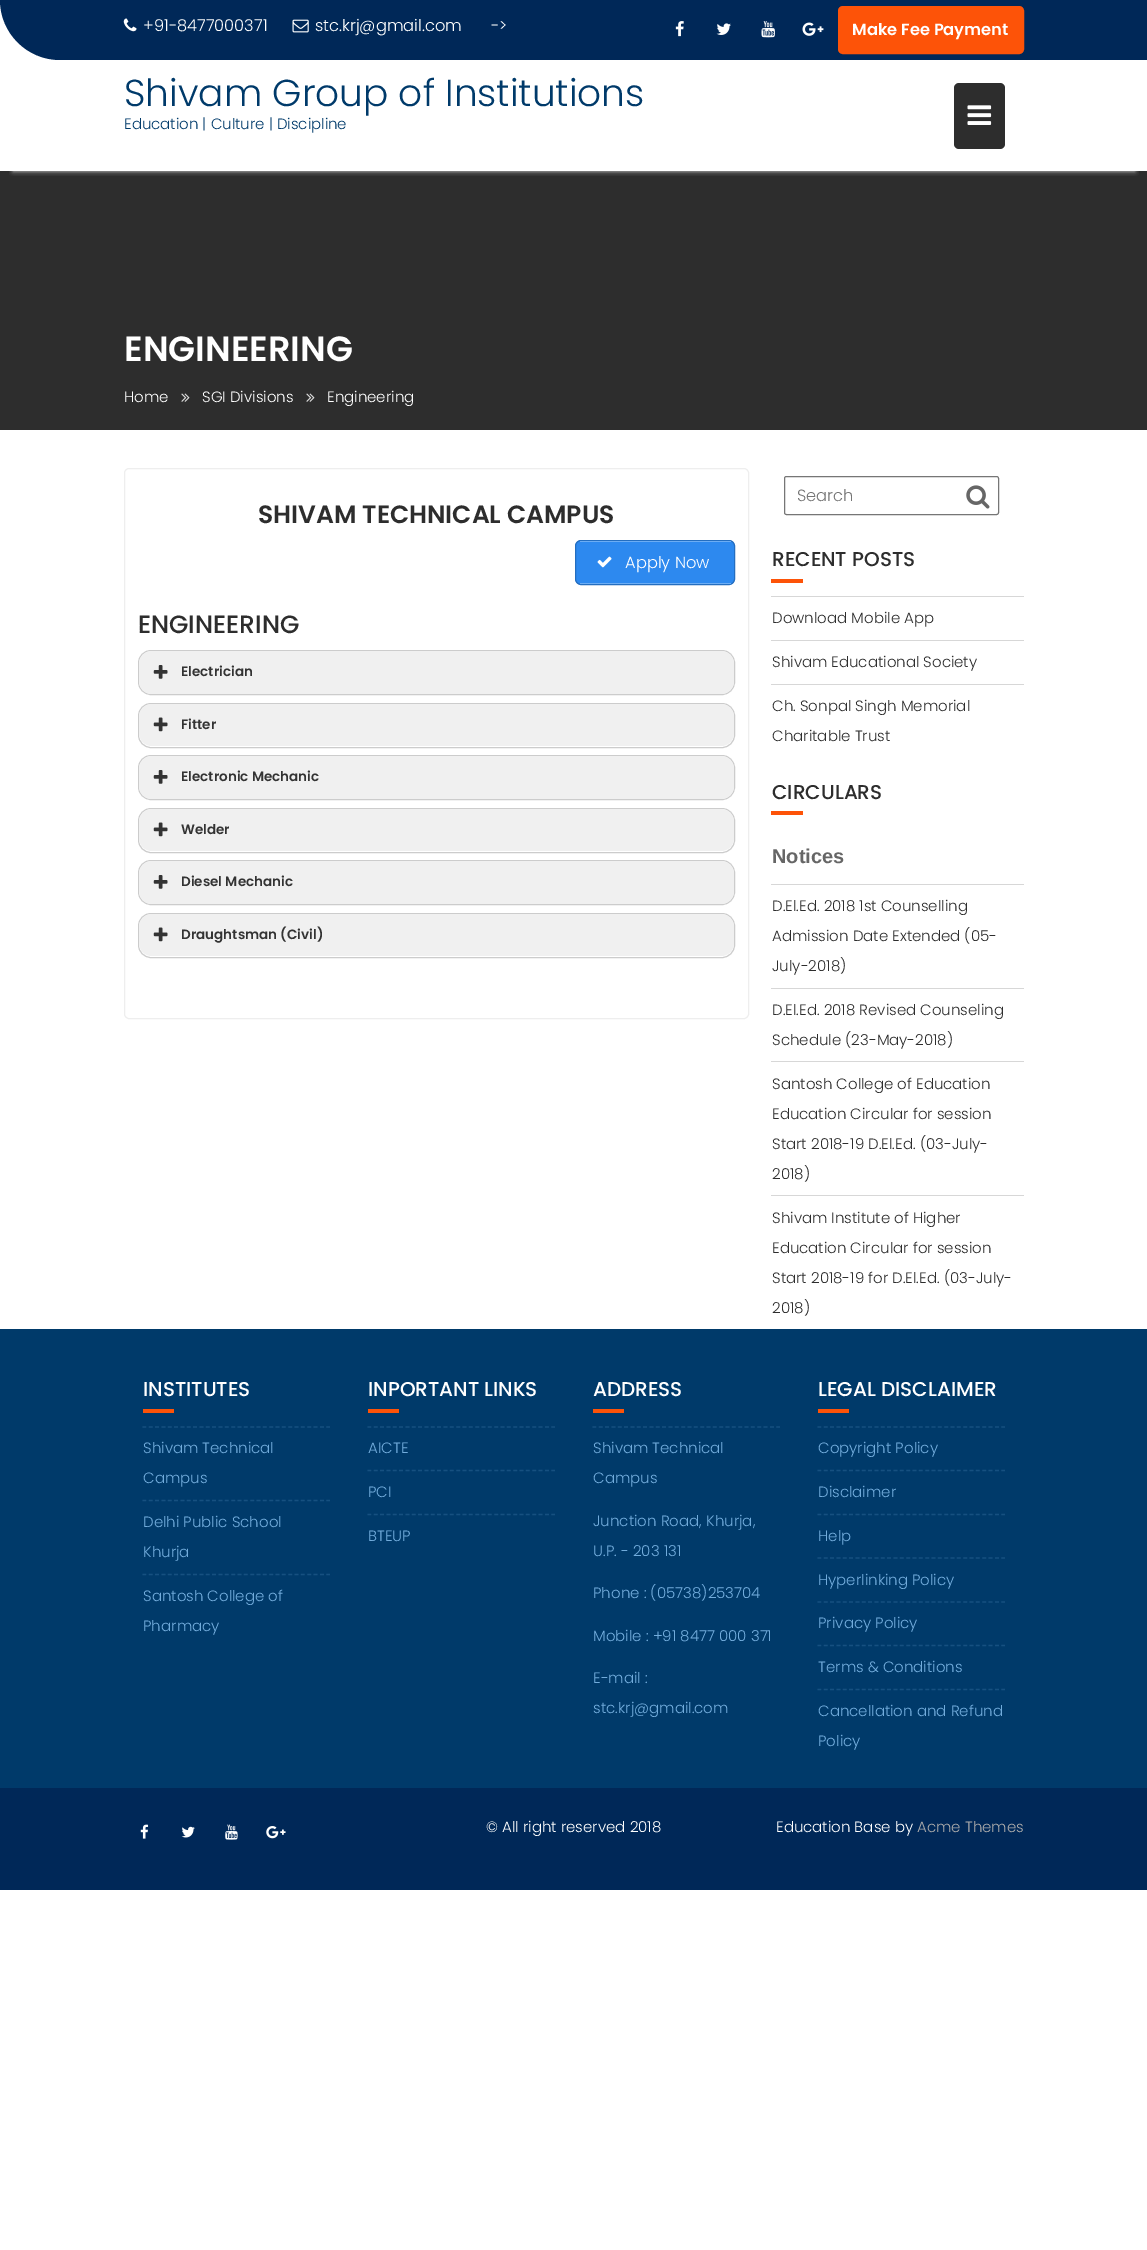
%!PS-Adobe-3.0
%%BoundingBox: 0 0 1147 2250
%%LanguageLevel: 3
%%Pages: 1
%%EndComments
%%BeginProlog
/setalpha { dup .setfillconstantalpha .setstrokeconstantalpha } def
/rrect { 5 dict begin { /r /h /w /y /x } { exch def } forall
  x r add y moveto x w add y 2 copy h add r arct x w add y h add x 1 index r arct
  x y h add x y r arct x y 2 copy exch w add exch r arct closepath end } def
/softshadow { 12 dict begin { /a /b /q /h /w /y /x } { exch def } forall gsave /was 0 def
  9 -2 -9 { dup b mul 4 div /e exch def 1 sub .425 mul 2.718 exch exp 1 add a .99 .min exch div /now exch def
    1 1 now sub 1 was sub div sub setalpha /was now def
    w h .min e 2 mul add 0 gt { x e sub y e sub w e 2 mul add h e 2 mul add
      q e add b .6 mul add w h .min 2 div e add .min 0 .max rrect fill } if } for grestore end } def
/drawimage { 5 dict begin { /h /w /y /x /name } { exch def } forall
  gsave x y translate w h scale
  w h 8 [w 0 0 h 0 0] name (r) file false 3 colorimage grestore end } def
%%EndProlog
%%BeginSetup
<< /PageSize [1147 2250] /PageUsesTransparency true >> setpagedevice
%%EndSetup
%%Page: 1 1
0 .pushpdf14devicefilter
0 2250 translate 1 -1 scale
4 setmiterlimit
1 setgray
0 0 1147 2250 rectfill
0 0.157 0.345 setrgbcolor
newpath 0 0 moveto 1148 0 lineto 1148 60 lineto 60 60 lineto 27 60 0 33 0 0 curveto closepath fill
(images/1.raw) 123 18 14 14 drawimage
(images/2.raw) 292 19 17 14 drawimage
(images/3.raw) 675 21 9 16 drawimage
(images/4.raw) 716 23 15 12 drawimage
(images/5.raw) 761 21 14 17 drawimage
(images/6.raw) 802 22 22 14 drawimage
0.992 0.325 0.031 setrgbcolor
839.5 7.5 183 45 3.5 rrect gsave fill grestore
3 setlinewidth
stroke
0.176 setgray
0 171 1147 259 rectfill
gsave
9 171 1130 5 rectclip
0.933 setgray
13 85 1122 86 0 2.5 0.9 softshadow
grestore
954 83 51 66 5 rrect fill
(images/7.raw) 967 105 25 20 drawimage
(images/8.raw) 181 393 9 9 drawimage
(images/8.raw) 306 393 9 9 drawimage
0.933 setgray
1 setlinewidth
124.5 468.5 624 550 4.5 rrect stroke
0.176 0.537 0.937 setrgbcolor
575.5 540.5 159 44 5.5 rrect gsave fill grestore
0.141 0.431 0.753 setrgbcolor
stroke
0.424 0.678 0.957 setrgbcolor
580 541 151 1 rectfill
580 583 151 1 rectfill
(images/9.raw) 597 556 15 12 drawimage
0.8 setgray
138.5 650.5 596 44 12.5 rrect stroke
0.941 setgray
139 651 595 43 13 rrect fill
(images/10.raw) 153 665 15 14 drawimage
0.8 setgray
138.5 703.5 596 44 12.5 rrect stroke
0.941 setgray
139 704 595 42 13 rrect fill
(images/11.raw) 153 717 15 15 drawimage
0.8 setgray
138.5 755.5 596 44 12.5 rrect stroke
0.941 setgray
139 756 595 43 13 rrect fill
(images/10.raw) 153 770 15 14 drawimage
0.8 setgray
138.5 808.5 596 44 12.5 rrect stroke
0.941 setgray
139 809 595 42 13 rrect fill
(images/11.raw) 153 822 15 15 drawimage
0.8 setgray
138.5 860.5 596 44 12.5 rrect stroke
0.941 setgray
139 861 595 43 13 rrect fill
(images/10.raw) 153 875 15 14 drawimage
0.8 setgray
138.5 913.5 596 44 12.5 rrect stroke
0.941 setgray
139 914 595 42 13 rrect fill
(images/11.raw) 153 927 15 15 drawimage
0.463 setgray
784.5 476.5 214 38 2 rrect stroke
(images/12.raw) 966 485 24 24 drawimage
0.992 0.325 0.031 setrgbcolor
771 579 32 4 rectfill
0.843 setgray
771 596 253 1 rectfill
771 640 253 1 rectfill
771 684 253 1 rectfill
0.992 0.325 0.031 setrgbcolor
771 811 32 4 rectfill
0.843 setgray
771 884 253 1 rectfill
771 988 253 1 rectfill
771 1061 253 1 rectfill
771 1195 253 1 rectfill
0 0.227 0.416 setrgbcolor
0 1329 1147 459 rectfill
0.992 0.325 0.031 setrgbcolor
143 1409 31 4 rectfill
0.086 0.314 0.502 setrgbcolor
1.2 setlinewidth
[3.75 2.59] 0 setdash
newpath 142.5 1427 moveto 330 1427 lineto stroke
newpath 142.5 1500.5 moveto 330 1500.5 lineto stroke
newpath 142.5 1574.5 moveto 330 1574.5 lineto stroke
0.992 0.325 0.031 setrgbcolor
368 1409 31 4 rectfill
0.086 0.314 0.502 setrgbcolor
newpath 367.5 1427 moveto 555 1427 lineto stroke
newpath 367.5 1470.5 moveto 555 1470.5 lineto stroke
newpath 367.5 1514.5 moveto 555 1514.5 lineto stroke
0.992 0.325 0.031 setrgbcolor
593 1409 31 4 rectfill
0.086 0.314 0.502 setrgbcolor
newpath 592.5 1427 moveto 780 1427 lineto stroke
0.992 0.325 0.031 setrgbcolor
818 1409 31 4 rectfill
0.086 0.314 0.502 setrgbcolor
newpath 817.5 1427 moveto 1005 1427 lineto stroke
newpath 817.5 1470.5 moveto 1005 1470.5 lineto stroke
newpath 817.5 1514.5 moveto 1005 1514.5 lineto stroke
newpath 817.5 1558 moveto 1005 1558 lineto stroke
newpath 817.5 1602 moveto 1005 1602 lineto stroke
newpath 817.5 1645.5 moveto 1005 1645.5 lineto stroke
newpath 817.5 1689.5 moveto 1005 1689.5 lineto stroke
0 0.157 0.345 setrgbcolor
0 1788 1147 102 rectfill
(images/13.raw) 140 1824 9 15 drawimage
(images/14.raw) 181 1826 14 12 drawimage
(images/15.raw) 225 1824 13 16 drawimage
(images/16.raw) 266 1826 20 13 drawimage
/Poppins-Light [16.25 0 0 -16.25 0 0] selectfont
1 setgray
143 31 moveto (+91-8477000371) show
315 31 moveto (stc.krj@gmail.com) show
491 31 moveto (->) show
/Poppins-SemiBold [16.25 0 0 -16.25 0 0] selectfont
852 35 moveto (Make Fee Payment) show
/Poppins-Light [37.5 0 0 -37.5 0 0] selectfont
0 0.227 0.416 setrgbcolor
124 106 moveto (Shivam Group of Institutions) show
/Poppins-Light [15 0 0 -15 0 0] selectfont
124 129 moveto (Education | Culture | Discipline) show
/Poppins-SemiBold [35 0 0 -35 0 0] selectfont
1 setgray
124 361 moveto (ENGINEERING) show
/Poppins-Light [15 0 0 -15 0 0] selectfont
124 402 moveto (Home) show
202 402 moveto (SGI Divisions) show
327 402 moveto (Engineering) show
/Poppins-SemiBold [25 0 0 -25 0 0] selectfont
0.176 setgray
258 523 moveto (SHIVAM TECHNICAL CAMPUS) show
/Poppins-Light [16.25 0 0 -16.25 0 0] selectfont
1 setgray
625 568 moveto (Apply Now) show
/Poppins-Medium [25 0 0 -25 0 0] selectfont
0.176 setgray
138 633 moveto (ENGINEERING) show
/Poppins-SemiBold [13.5 0 0 -13.5 0 0] selectfont
0.2 setgray
181 676 moveto (Electrician) show
181 729 moveto (Fitter) show
181 781 moveto (Electronic Mechanic) show
181 834 moveto (Welder) show
181 886 moveto (Diesel Mechanic) show
181 939 moveto (Draughtsman \(Civil\)) show
/Poppins-Light [16.25 0 0 -16.25 0 0] selectfont
0.459 setgray
797 501 moveto (Search) show
/Poppins-Medium [20 0 0 -20 0 0] selectfont
0.176 setgray
772 566 moveto (RECENT POSTS) show
/Poppins-Light [15 0 0 -15 0 0] selectfont
772 623 moveto (Download Mobile App) show
772 667 moveto (Shivam Educational Society) show
772 711 moveto (Ch. Sonpal Singh Memorial) show
772 741 moveto (Charitable Trust) show
/Poppins-Medium [20 0 0 -20 0 0] selectfont
772 799 moveto (CIRCULARS) show
/LiberationSans-Bold [20 0 0 -20 0 0] selectfont
0.4 setgray
772 863 moveto (Notices) show
/Poppins-Light [15 0 0 -15 0 0] selectfont
0.176 setgray
772 911 moveto (D.El.Ed. 2018 1st Counselling) show
772 941 moveto (Admission Date Extended \(05-) show
772 971 moveto (July-2018\)) show
772 1015 moveto (D.El.Ed. 2018 Revised Counseling) show
772 1045 moveto (Schedule \(23-May-2018\)) show
772 1089 moveto (Santosh College of Education) show
772 1119 moveto (Education Circular for session) show
772 1149 moveto (Start 2018-19 D.El.Ed. \(03-July-) show
772 1179 moveto (2018\)) show
772 1223 moveto (Shivam Institute of Higher) show
772 1253 moveto (Education Circular for session) show
772 1283 moveto (Start 2018-19 for D.El.Ed. \(03-July-) show
772 1313 moveto (2018\)) show
/Poppins-Medium [20 0 0 -20 0 0] selectfont
1 setgray
143 1396 moveto (INSTITUTES) show
/Poppins-Light [15 0 0 -15 0 0] selectfont
0.447 0.675 0.863 setrgbcolor
143 1453 moveto (Shivam Technical) show
143 1483 moveto (Campus) show
143 1527 moveto (Delhi Public School) show
143 1557 moveto (Khurja) show
143 1601 moveto (Santosh College of) show
143 1631 moveto (Pharmacy) show
/Poppins-Medium [20 0 0 -20 0 0] selectfont
1 setgray
368 1396 moveto (INPORTANT LINKS) show
/Poppins-Light [15 0 0 -15 0 0] selectfont
0.447 0.675 0.863 setrgbcolor
368 1453 moveto (AICTE) show
368 1497 moveto (PCI) show
368 1541 moveto (BTEUP) show
/Poppins-Medium [20 0 0 -20 0 0] selectfont
1 setgray
593 1396 moveto (ADDRESS) show
/Poppins-Light [15 0 0 -15 0 0] selectfont
0.447 0.675 0.863 setrgbcolor
593 1453 moveto (Shivam Technical) show
593 1483 moveto (Campus) show
593 1526 moveto (Junction Road, Khurja,) show
593 1556 moveto (U.P. - 203 131) show
593 1598 moveto (Phone : \(05738\)253704) show
593 1641 moveto (Mobile : +91 8477 000 371) show
593 1683 moveto (E-mail :) show
593 1713 moveto (stc.krj@gmail.com) show
/Poppins-Medium [20 0 0 -20 0 0] selectfont
1 setgray
818 1396 moveto (LEGAL DISCLAIMER) show
/Poppins-Light [15 0 0 -15 0 0] selectfont
0.447 0.675 0.863 setrgbcolor
818 1453 moveto (Copyright Policy) show
818 1497 moveto (Disclaimer) show
818 1541 moveto (Help) show
818 1585 moveto (Hyperlinking Policy) show
818 1628 moveto (Privacy Policy) show
818 1672 moveto (Terms & Conditions) show
818 1716 moveto (Cancellation and Refund) show
818 1746 moveto (Policy) show
1 setgray
486 1832 moveto (© All right reserved 2018) show
776 1832 moveto (Education Base by) show
0.667 setgray
917 1832 moveto (Acme Themes) show
.poppdf14devicefilter showpage
%%EOF
